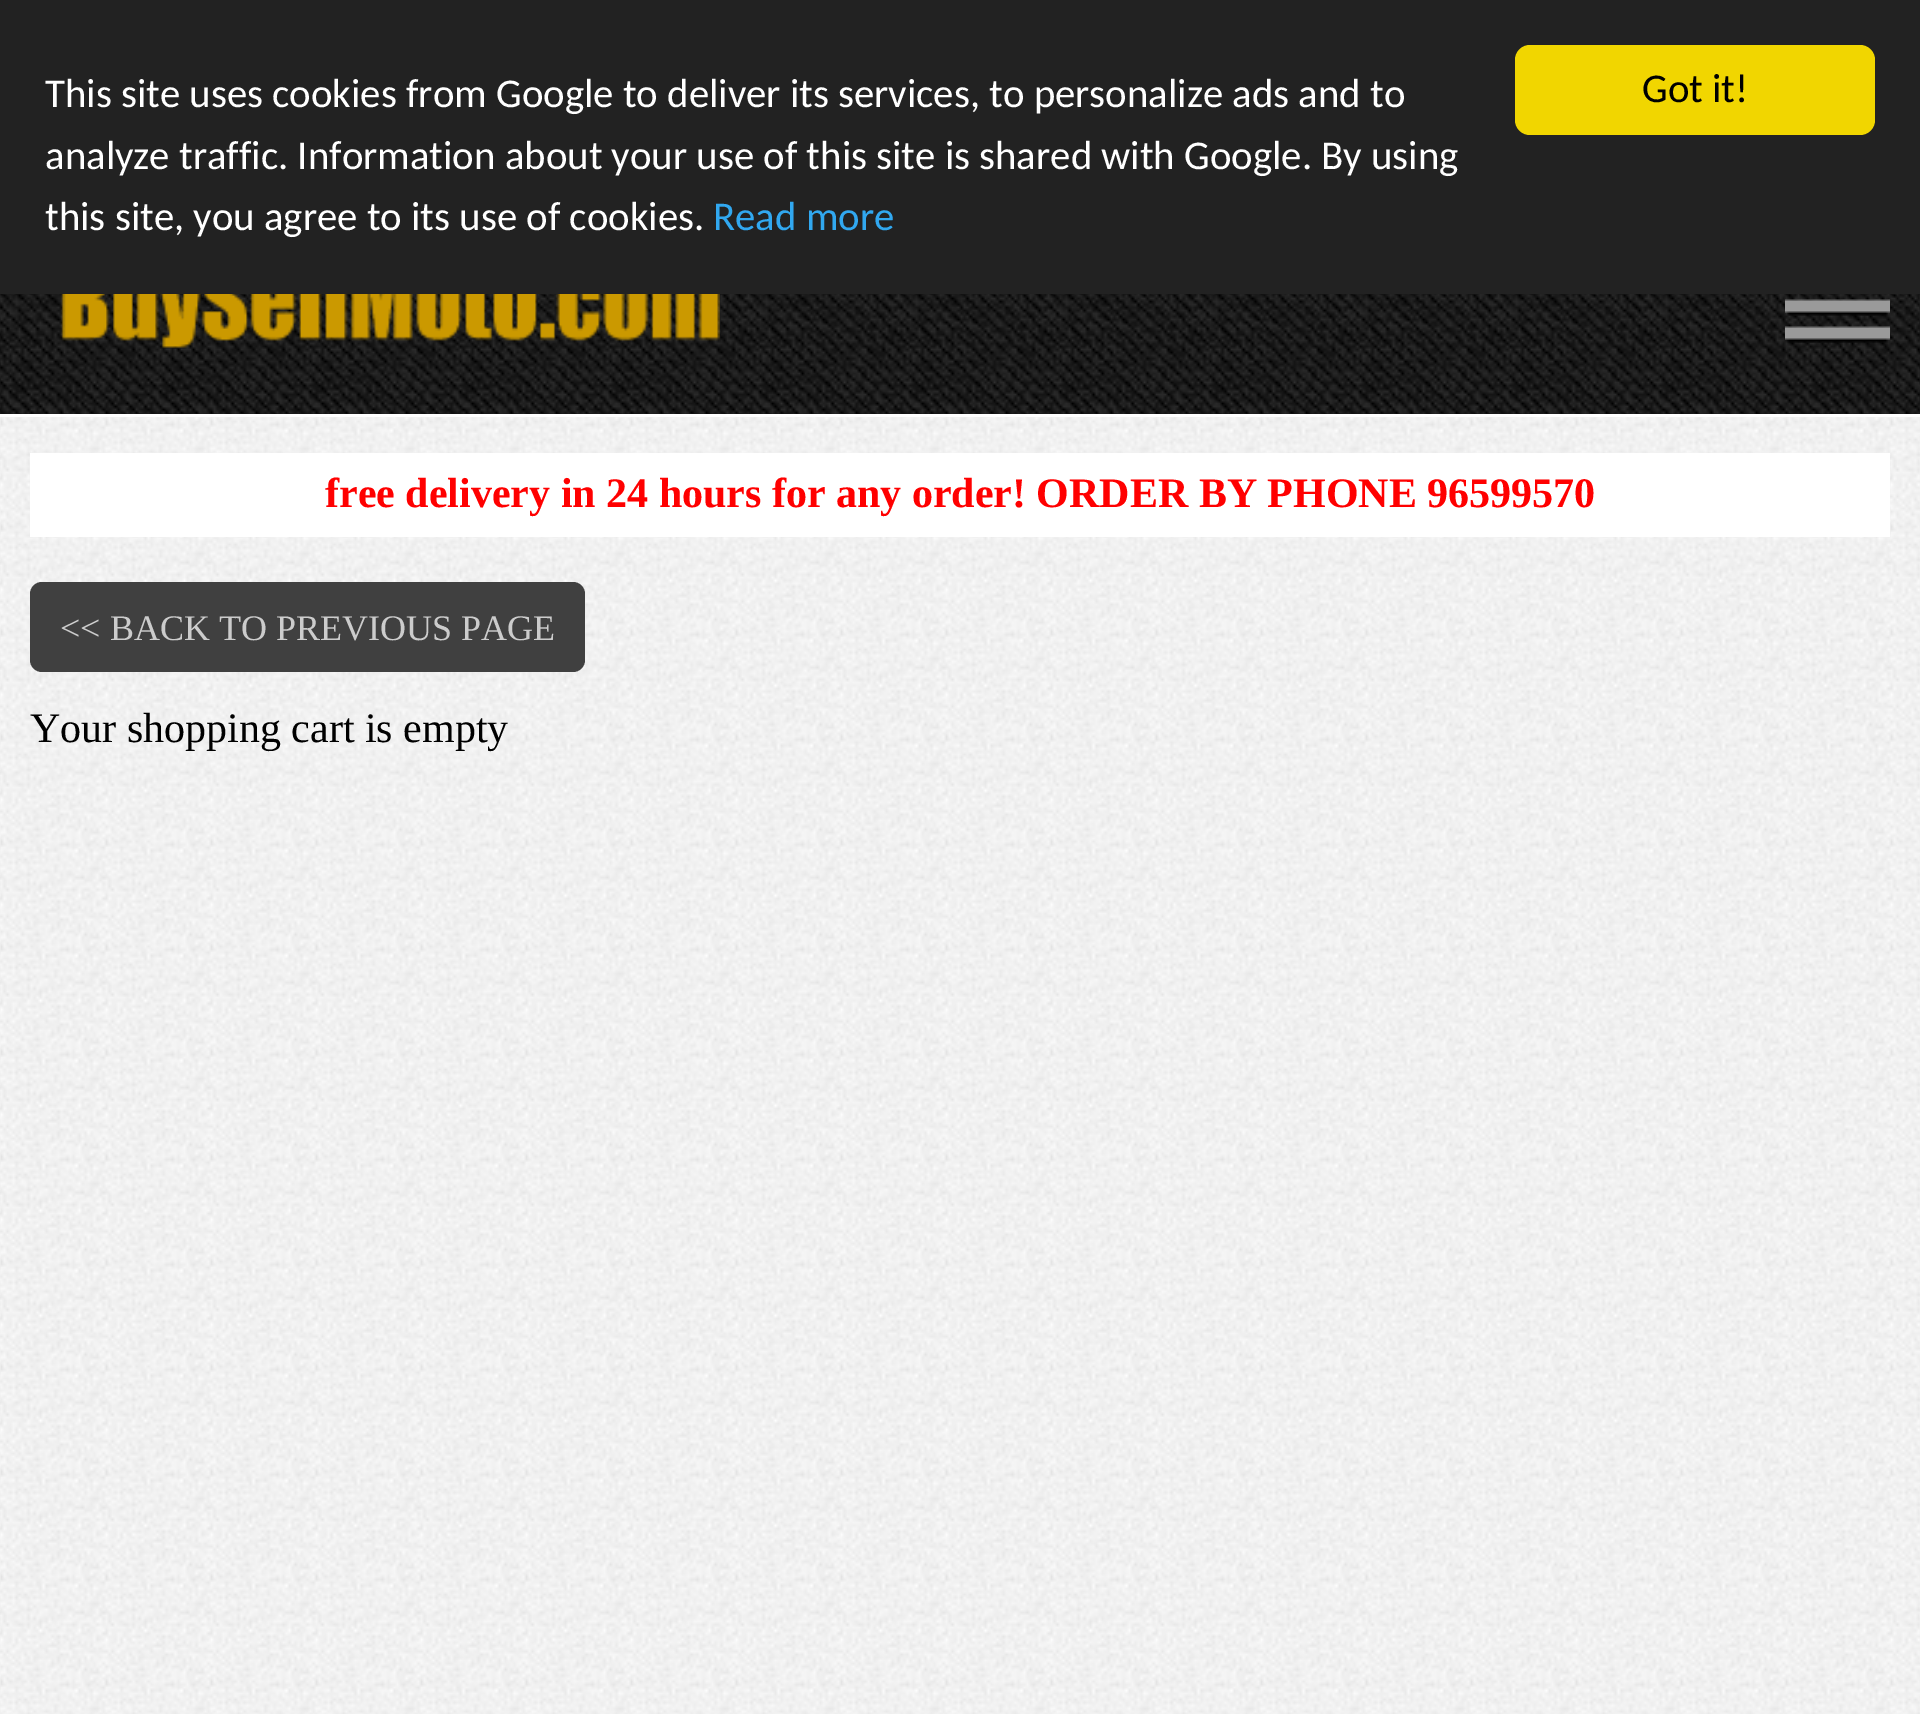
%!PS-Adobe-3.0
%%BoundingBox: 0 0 1920 1714
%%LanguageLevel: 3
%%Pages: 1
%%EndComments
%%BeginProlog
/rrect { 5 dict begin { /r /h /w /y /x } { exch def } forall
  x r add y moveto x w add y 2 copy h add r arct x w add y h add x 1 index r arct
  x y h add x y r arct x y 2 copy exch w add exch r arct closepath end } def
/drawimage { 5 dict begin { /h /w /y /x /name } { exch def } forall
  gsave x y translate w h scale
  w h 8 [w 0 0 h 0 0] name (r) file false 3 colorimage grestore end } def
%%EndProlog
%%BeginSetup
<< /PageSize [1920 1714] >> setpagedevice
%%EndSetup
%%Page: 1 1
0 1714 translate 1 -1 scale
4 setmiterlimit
1 setgray
0 0 1920 1714 rectfill
(images/1.raw) 0 417 1920 1297 drawimage
0.133 setgray
0 0 1920 294 rectfill
0.945 0.839 0 setrgbcolor
1515 45 360 90 15 rrect fill
(images/2.raw) 0 294 1920 120 drawimage
(images/3.raw) 61 294 659 54 drawimage
(images/4.raw) 1785 299 105 44 drawimage
1 setgray
30 453 1860 84 rectfill
0.251 setgray
30 582 555 90 12 rrect fill
/Carlito-Regular [40.8 0 0 -40.8 0 0] selectfont
1 setgray
45 107 moveto (This site uses cookies from Google to deliver its services, to personalize ads and to) show
45 169 moveto (analyze traffic. Information about your use of this site is shared with Google. By using) show
45 230 moveto (this site, you agree to its use of cookies.) show
0.192 0.659 0.941 setrgbcolor
713 230 moveto (Read more) show
0 setgray
1642 102 moveto (Got it!) show
/LiberationSerif-Bold [42 0 0 -42 0 0] selectfont
1 0 0 setrgbcolor
325 507 moveto (free delivery in 24 hours for any order! ORDER BY PHONE 96599570) show
/LiberationSerif-Regular [36 0 0 -36 0 0] selectfont
0.8 setgray
60 640 moveto (<< BACK TO PREVIOUS PAGE) show
/LiberationSerif-Regular [42 0 0 -42 0 0] selectfont
0 setgray
30 742 moveto (Your shopping cart is empty) show
showpage
%%EOF
